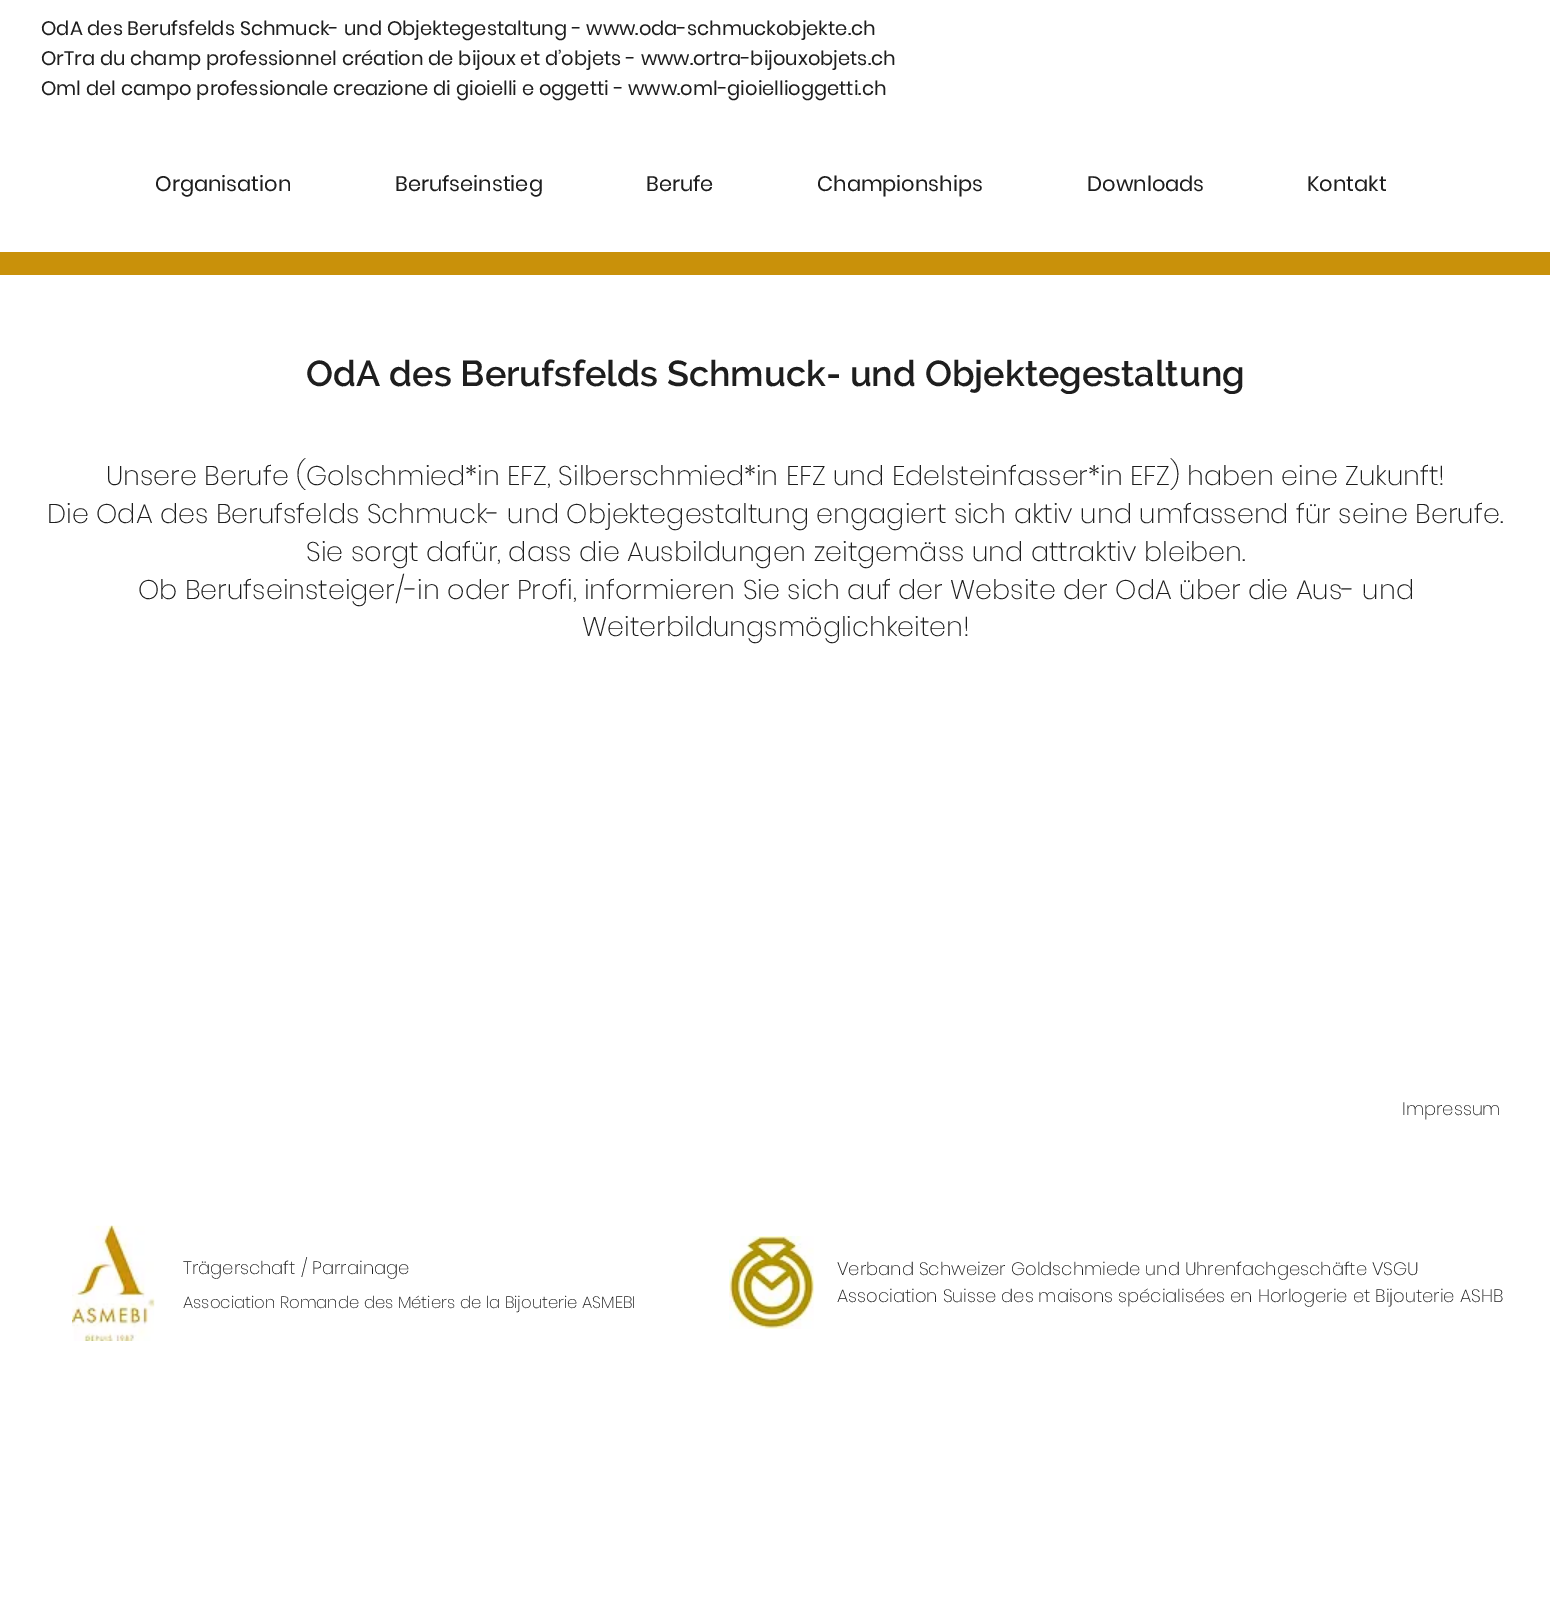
%!PS-Adobe-3.0
%%BoundingBox: 0 0 1550 1618
%%LanguageLevel: 3
%%Pages: 1
%%EndComments
%%BeginProlog
/drawimage { 5 dict begin { /h /w /y /x /name } { exch def } forall
  gsave x y translate w h scale
  w h 8 [w 0 0 h 0 0] name (r) file false 3 colorimage grestore end } def
%%EndProlog
%%BeginSetup
<< /PageSize [1550 1618] >> setpagedevice
%%EndSetup
%%Page: 1 1
0 1618 translate 1 -1 scale
4 setmiterlimit
1 setgray
0 0 1550 1618 rectfill
0.788 0.569 0.039 setrgbcolor
0 252 1550 23 rectfill
(images/1.raw) 72 1225 83 116 drawimage
(images/2.raw) 729 1236 86 93 drawimage
/Poppins-Regular [19.5 0 0 -19.5 0 0] selectfont
0.118 setgray
41 35 moveto (OdA des Berufsfelds Schmuck- und Objektegestaltung - www.oda-schmuckobjekte.ch) show
41 65 moveto (OrTra du champ professionnel création de bijoux et d’objets - www.ortra-bijouxobjets.ch) show
41 95 moveto (Oml del campo professionale creazione di gioielli e oggetti - www.oml-gioiellioggetti.ch) show
/Poppins-Regular [21 0 0 -21 0 0] selectfont
155 191 moveto (Organisation) show
395 191 moveto (Berufseinstieg) show
646 191 moveto (Berufe) show
817 191 moveto (Championships) show
1087 191 moveto (Downloads) show
1307 191 moveto (Kontakt) show
/Raleway-SemiBold [36 0 0 -36 0 0] selectfont
306 386 moveto (OdA des Berufsfelds Schmuck- und Objektegestaltung) show
/Poppins-ExtraLight [27 0 0 -27 0 0] selectfont
106 485 moveto (Unsere Berufe \(Golschmied*in EFZ, Silberschmied*in EFZ und Edelsteinfasser*in EFZ\) haben eine Zukunft!) show
47 523 moveto (Die OdA des Berufsfelds Schmuck- und Objektegestaltung engagiert sich aktiv und umfassend für seine Berufe.) show
306 561 moveto (Sie sorgt dafür, dass die Ausbildungen zeitgemäss und attraktiv bleiben.) show
138 599 moveto (Ob Berufseinsteiger/-in oder Profi, informieren Sie sich auf der Website der OdA über die Aus- und) show
582 636 moveto (Weiterbildungsmöglichkeiten!) show
/Poppins-ExtraLight [18 0 0 -18 0 0] selectfont
1402 1115 moveto (Impressum) show
183 1274 moveto (Trägerschaft / Parrainage) show
/Poppins-ExtraLight [16.5 0 0 -16.5 0 0] selectfont
183 1308 moveto (Association Romande des Métiers de la Bijouterie ASMEBI) show
/Poppins-ExtraLight [18 0 0 -18 0 0] selectfont
837 1275 moveto (Verband Schweizer Goldschmiede und Uhrenfachgeschäfte VSGU) show
837 1302 moveto (Association Suisse des maisons spécialisées en Horlogerie et Bijouterie ASHB) show
showpage
%%EOF
